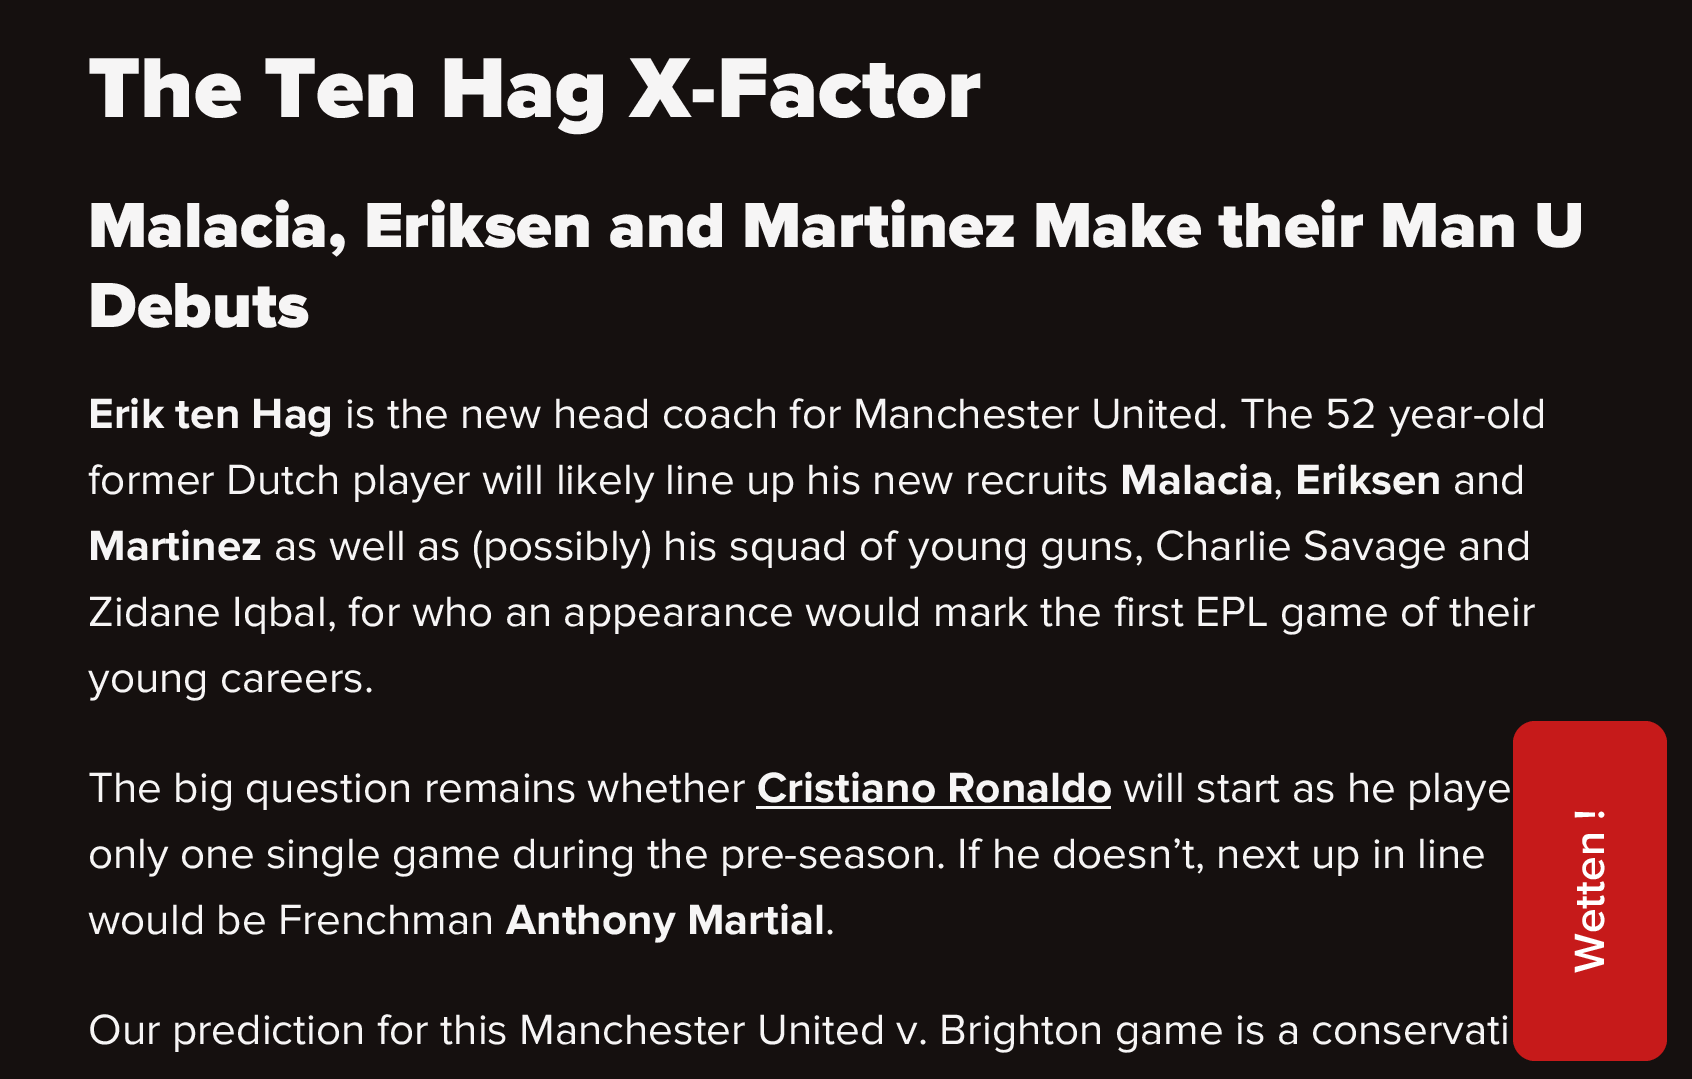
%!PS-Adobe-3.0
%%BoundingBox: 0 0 1692 1079
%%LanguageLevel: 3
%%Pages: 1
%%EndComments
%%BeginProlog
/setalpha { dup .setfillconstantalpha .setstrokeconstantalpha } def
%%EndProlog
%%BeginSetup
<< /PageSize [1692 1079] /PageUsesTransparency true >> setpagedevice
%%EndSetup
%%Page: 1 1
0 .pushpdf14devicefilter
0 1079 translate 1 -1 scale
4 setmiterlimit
0.082 0.063 0.059 setrgbcolor
0 0 1692 1079 rectfill
0.965 0.961 0.961 setrgbcolor
756 806 355 3 rectfill
0.867 0.114 0.114 setrgbcolor
newpath 1513 1039 moveto 1513 743 lineto 1513 731 1523 721 1535 721 curveto 1645 721 lineto 1657 721 1667 731 1667 743 curveto 1667 1039 lineto 1667 1051 1657 1061 1645 1061 curveto 1535 1061 lineto 1523 1061 1513 1051 1513 1039 curveto closepath fill
0.1 setalpha
0 setgray
newpath 1513 1039 moveto 1513 743 lineto 1513 731 1523 721 1535 721 curveto 1645 721 lineto 1657 721 1667 731 1667 743 curveto 1667 1039 lineto 1667 1051 1657 1061 1645 1061 curveto 1535 1061 lineto 1523 1061 1513 1051 1513 1039 curveto closepath fill
/ProximaNova-Black [88 0 0 -88 0 0] selectfont
1 setalpha
0.965 0.961 0.961 setrgbcolor
88 117 moveto (The Ten Hag X-Factor) show
/ProximaNova-Black [66 0 0 -66 0 0] selectfont
88 247 moveto (Malacia, Eriksen and Martinez Make their Man U) show
88 327 moveto (Debuts) show
/ProximaNova-Bold [44 0 0 -44 0 0] selectfont
88 428 moveto (Erik ten Hag) show
/ProximaNova-Regular [44 0 0 -44 0 0] selectfont
345 428 moveto (is the new head coach for Manchester United. The 52 year-old) show
88 494 moveto (former Dutch player will likely line up his new recruits) show
/ProximaNova-Bold [44 0 0 -44 0 0] selectfont
1120 494 moveto (Malacia) show
/ProximaNova-Regular [44 0 0 -44 0 0] selectfont
1273 494 moveto (,) show
/ProximaNova-Bold [44 0 0 -44 0 0] selectfont
1295 494 moveto (Eriksen) show
/ProximaNova-Regular [44 0 0 -44 0 0] selectfont
1453 494 moveto (and) show
/ProximaNova-Bold [44 0 0 -44 0 0] selectfont
88 560 moveto (Martinez) show
/ProximaNova-Regular [44 0 0 -44 0 0] selectfont
274 560 moveto (as well as \(possibly\) his squad of young guns, Charlie Savage and) show
88 626 moveto (Zidane Iqbal, for who an appearance would mark the first EPL game of their) show
88 692 moveto (young careers.) show
88 802 moveto (The big question remains whether) show
/ProximaNova-Bold [44 0 0 -44 0 0] selectfont
757 802 moveto (Cristiano Ronaldo) show
/ProximaNova-Regular [44 0 0 -44 0 0] selectfont
1123 802 moveto (will start as he playe) show
88 868 moveto (only one single game during the pre-season. If he doesn’t, next up in line) show
88 934 moveto (would be Frenchman) show
/ProximaNova-Bold [44 0 0 -44 0 0] selectfont
506 934 moveto (Anthony Martial) show
/ProximaNova-Regular [44 0 0 -44 0 0] selectfont
825 934 moveto (.) show
88 1044 moveto (Our prediction for this Manchester United v. Brighton game is a conservati) show
/ProximaNova-SemiBold [44 0 0 -44 0 0] selectfont
1 setgray
gsave 1604 973 translate -90 rotate 0 0 moveto (Wetten !) show grestore
.poppdf14devicefilter showpage
%%EOF
